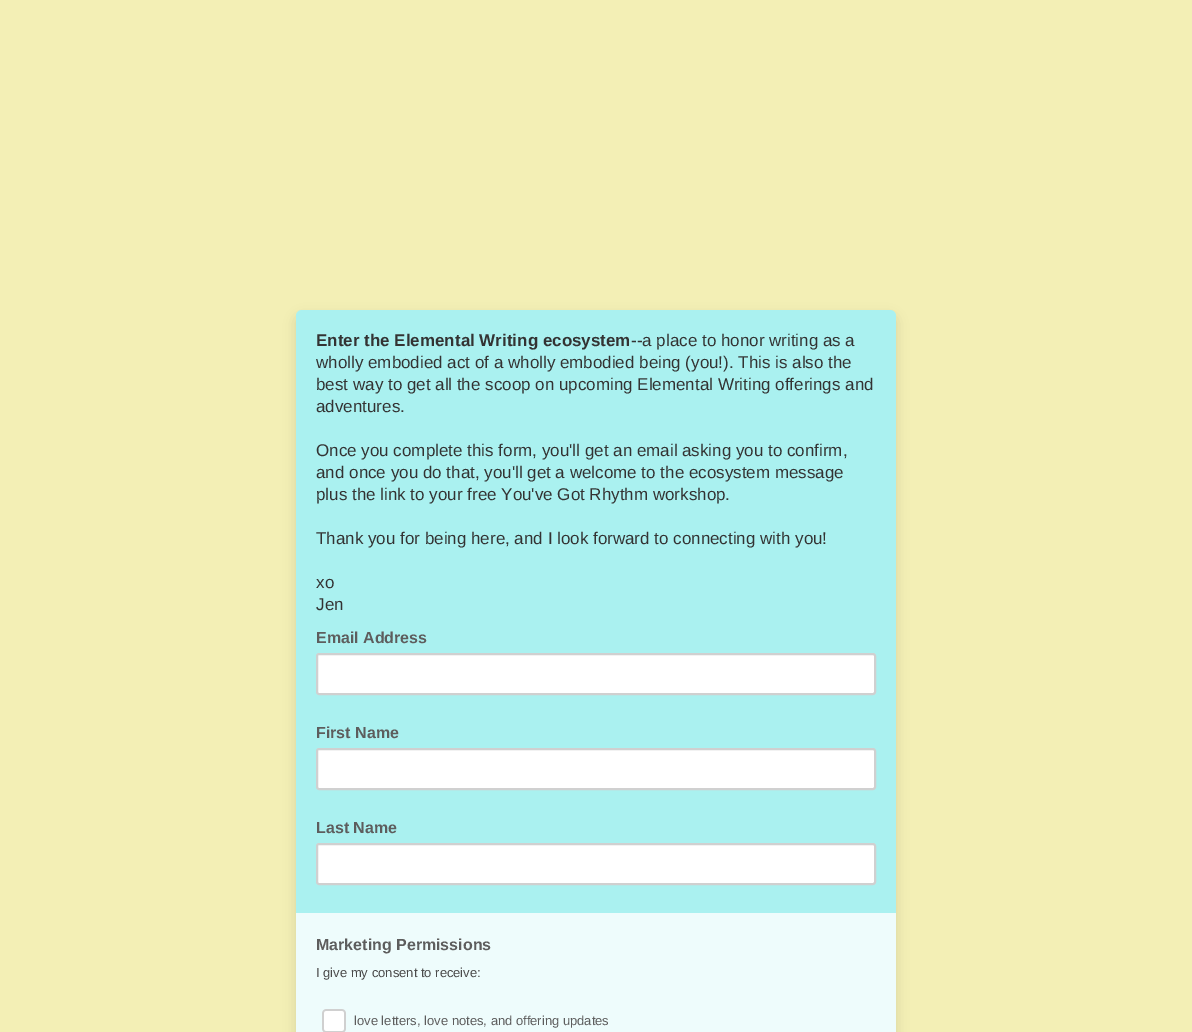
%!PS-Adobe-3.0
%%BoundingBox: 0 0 1192 1032
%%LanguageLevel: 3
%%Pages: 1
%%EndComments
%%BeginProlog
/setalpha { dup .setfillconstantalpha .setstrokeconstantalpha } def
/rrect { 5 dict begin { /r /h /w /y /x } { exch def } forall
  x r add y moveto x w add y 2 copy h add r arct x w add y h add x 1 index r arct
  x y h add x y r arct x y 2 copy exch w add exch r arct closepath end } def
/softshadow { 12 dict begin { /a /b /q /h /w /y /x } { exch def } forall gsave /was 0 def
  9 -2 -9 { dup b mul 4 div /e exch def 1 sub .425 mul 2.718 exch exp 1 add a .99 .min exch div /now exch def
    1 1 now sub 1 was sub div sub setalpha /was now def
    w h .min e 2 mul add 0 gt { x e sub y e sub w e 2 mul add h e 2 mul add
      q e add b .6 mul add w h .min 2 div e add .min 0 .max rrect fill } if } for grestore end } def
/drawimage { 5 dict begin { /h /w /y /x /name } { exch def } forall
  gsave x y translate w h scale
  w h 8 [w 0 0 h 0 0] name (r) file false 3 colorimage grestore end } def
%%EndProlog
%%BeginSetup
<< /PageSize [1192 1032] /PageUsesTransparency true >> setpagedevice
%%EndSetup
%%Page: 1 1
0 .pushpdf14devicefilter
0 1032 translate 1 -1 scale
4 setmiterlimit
0.953 0.937 0.71 setrgbcolor
0 0 1192 1032 rectfill
0.051 0.071 0.086 setrgbcolor
296 316 600 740 6 6 0.12 softshadow
0.667 0.945 0.941 setrgbcolor
296 310 600 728 6 rrect fill
1 setgray
317 654 558 40 2 rrect gsave fill grestore
0.816 setgray
2 setlinewidth
stroke
1 setgray
317 749 558 40 2 rrect gsave fill grestore
0.816 setgray
stroke
1 setgray
317 844 558 40 2 rrect gsave fill grestore
0.816 setgray
stroke
0.933 0.988 0.988 setrgbcolor
296 913 600 119 rectfill
(images/1.raw) 322 1009 24 23 drawimage
/LiberationSans-Bold [17 0 0 -17 0 0] selectfont
0.2 setgray
316 346 moveto (Enter the Elemental Writing ecosystem) show
/LiberationSans-Regular [17 0 0 -17 0 0] selectfont
631 346 moveto (--a place to honor writing as a) show
316 368 moveto (wholly embodied act of a wholly embodied being \(you!\). This is also the) show
316 390 moveto (best way to get all the scoop on upcoming Elemental Writing offerings and) show
316 412 moveto (adventures.) show
316 456 moveto (Once you complete this form, you'll get an email asking you to confirm,) show
316 478 moveto (and once you do that, you'll get a welcome to the ecosystem message) show
316 500 moveto (plus the link to your free You've Got Rhythm workshop.) show
316 544 moveto (Thank you for being here, and I look forward to connecting with you!) show
316 588 moveto (xo) show
316 610 moveto (Jen) show
/LiberationSans-Bold [16 0 0 -16 0 0] selectfont
0.365 setgray
316 643 moveto (Email Address) show
316 738 moveto (First Name) show
316 833 moveto (Last Name) show
316 950 moveto (Marketing Permissions) show
/LiberationSans-Regular [13 0 0 -13 0 0] selectfont
0.29 setgray
316 977 moveto (I give my consent to receive:) show
0.365 setgray
354 1025 moveto (love letters, love notes, and offering updates) show
.poppdf14devicefilter showpage
%%EOF
